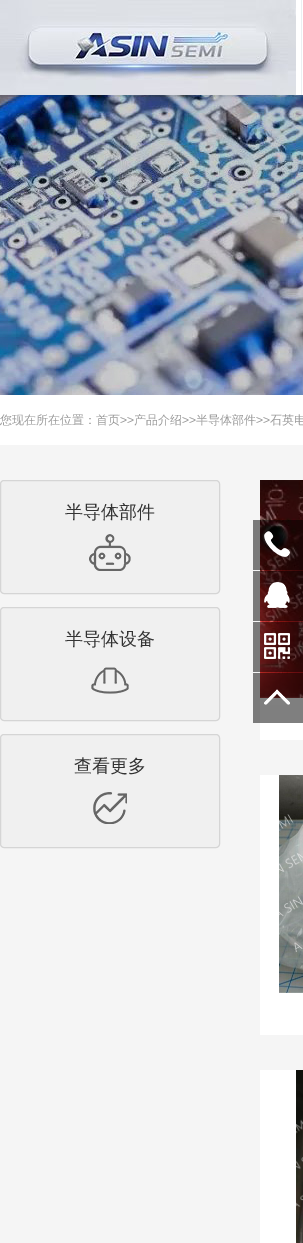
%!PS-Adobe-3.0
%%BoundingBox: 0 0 303 1243
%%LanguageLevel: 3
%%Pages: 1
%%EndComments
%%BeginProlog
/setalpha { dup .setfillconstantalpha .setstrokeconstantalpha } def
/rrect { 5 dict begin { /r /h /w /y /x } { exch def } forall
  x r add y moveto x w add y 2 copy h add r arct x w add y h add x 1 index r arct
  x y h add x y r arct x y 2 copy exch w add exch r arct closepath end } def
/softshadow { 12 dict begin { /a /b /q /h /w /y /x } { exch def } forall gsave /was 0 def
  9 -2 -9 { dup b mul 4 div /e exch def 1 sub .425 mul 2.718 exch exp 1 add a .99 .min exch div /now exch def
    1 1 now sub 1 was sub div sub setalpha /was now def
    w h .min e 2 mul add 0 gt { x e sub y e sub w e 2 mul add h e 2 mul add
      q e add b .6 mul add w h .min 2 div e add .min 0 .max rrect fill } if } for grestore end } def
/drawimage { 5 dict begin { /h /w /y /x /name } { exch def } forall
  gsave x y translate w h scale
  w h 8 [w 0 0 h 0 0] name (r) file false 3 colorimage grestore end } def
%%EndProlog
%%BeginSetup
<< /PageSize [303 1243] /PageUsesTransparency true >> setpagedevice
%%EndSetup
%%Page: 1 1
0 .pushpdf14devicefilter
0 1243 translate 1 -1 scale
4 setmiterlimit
0.961 setgray
0 0 303 1243 rectfill
(images/2.raw) 0 95 303 300 drawimage
0 setgray
0 2 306 95 0 1 0.1 softshadow
1 setgray
296 0 7 95 rectfill
(images/1.raw) 0 0 296 95 drawimage
0.922 0.937 0.945 setrgbcolor
301 0 1 95 rectfill
1 setgray
0 395 303 50 rectfill
0.941 setgray
0.5 480.5 219 113 3.5 rrect gsave fill grestore
0.835 setgray
stroke
(images/3.raw) 89 534 42 37 drawimage
0.941 setgray
0.5 607.5 219 113 3.5 rrect gsave fill grestore
0.835 setgray
stroke
(images/4.raw) 91 667 38 27 drawimage
0.941 setgray
0.5 734.5 219 113 3.5 rrect gsave fill grestore
0.835 setgray
stroke
(images/5.raw) 93 792 34 32 drawimage
1 setgray
260 698 43 42 rectfill
(images/6.raw) 260 480 43 218 drawimage
260 775 43 260 rectfill
(images/7.raw) 279 775 24 218 drawimage
260 1070 36 173 rectfill
(images/8.raw) 296 1070 7 173 drawimage
0.5 setalpha
0 setgray
253 520 50 50 rectfill
1 setalpha
(images/9.raw) 264 531 26 26 drawimage
0.5 setalpha
253 571 50 50 rectfill
1 setalpha
(images/10.raw) 264 582 26 26 drawimage
0.5 setalpha
253 622 50 50 rectfill
1 setalpha
(images/11.raw) 264 633 26 26 drawimage
0.5 setalpha
253 673 50 50 rectfill
1 setalpha
(images/12.raw) 264 689 26 16 drawimage
/WenQuanYiZenHei-Medium [12 0 0 -12 0 0] selectfont
0.6 setgray
0 424 moveto (您现在所在位置：首页) show
/LiberationSans-Regular [12 0 0 -12 0 0] selectfont
120 424 moveto (>>) show
/WenQuanYiZenHei-Medium [12 0 0 -12 0 0] selectfont
134 424 moveto (产品介绍) show
/LiberationSans-Regular [12 0 0 -12 0 0] selectfont
182 424 moveto (>>) show
/WenQuanYiZenHei-Medium [12 0 0 -12 0 0] selectfont
196 424 moveto (半导体部件) show
/LiberationSans-Regular [12 0 0 -12 0 0] selectfont
256 424 moveto (>>) show
/WenQuanYiZenHei-Medium [12 0 0 -12 0 0] selectfont
270 424 moveto (石英电) show
/WenQuanYiZenHei-Medium [18 0 0 -18 0 0] selectfont
0.2 setgray
65 518 moveto (半导体部件) show
65 645 moveto (半导体设备) show
74 772 moveto (查看更多) show
.poppdf14devicefilter showpage
%%EOF
